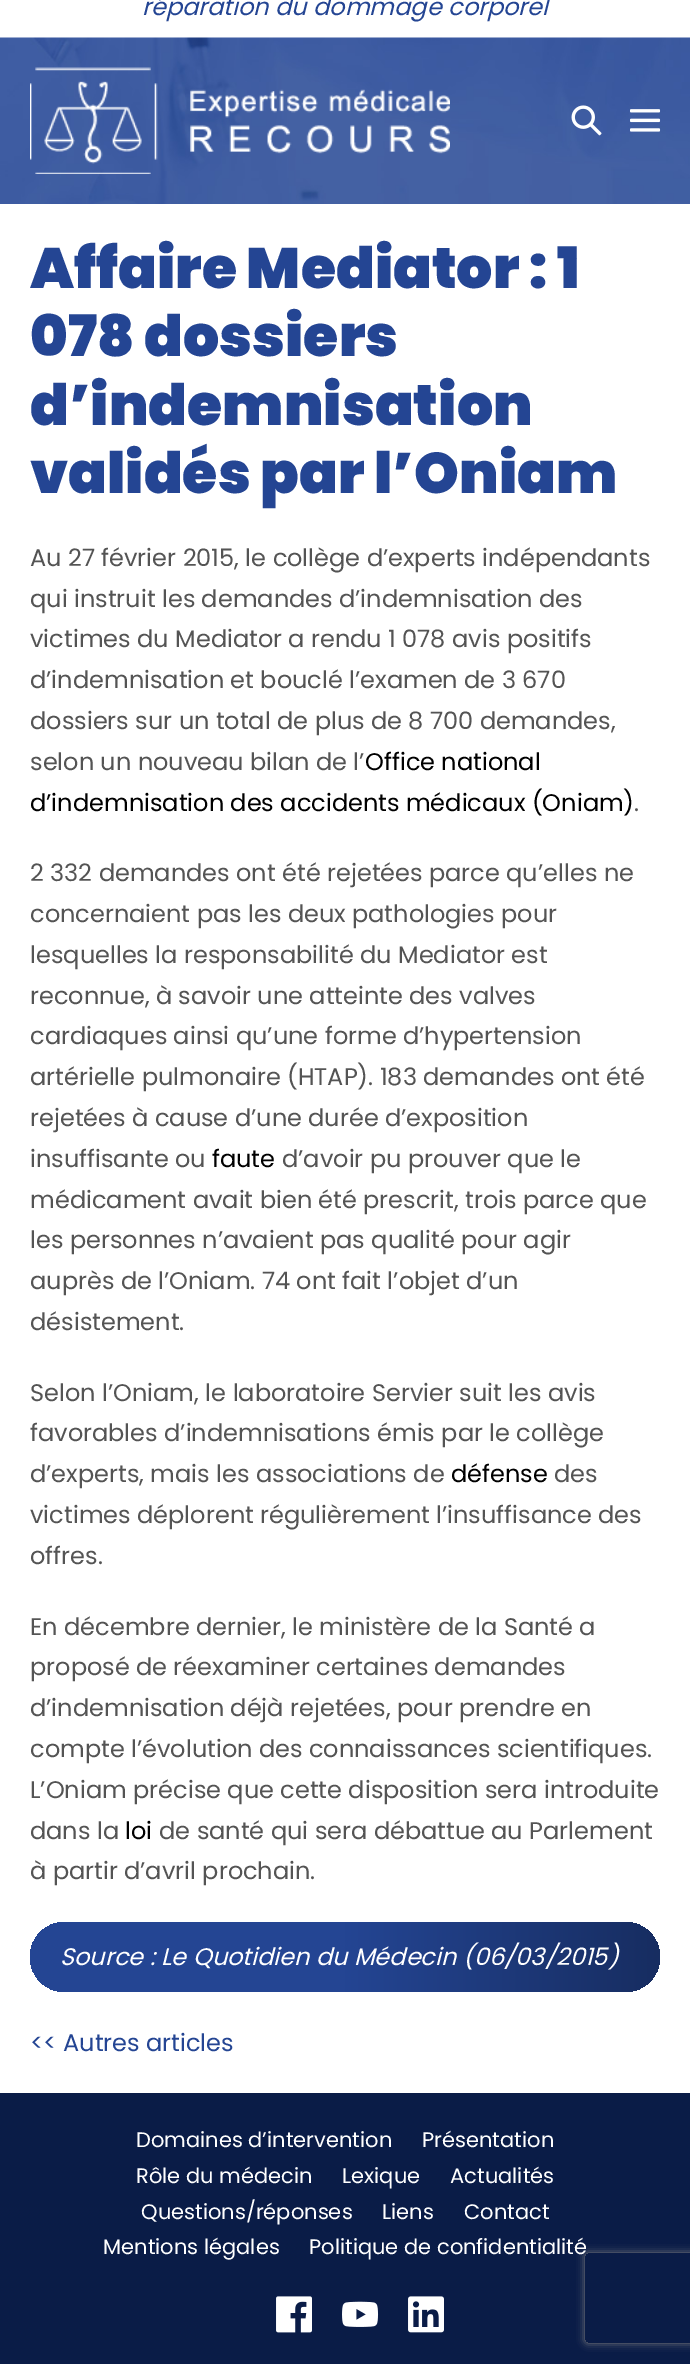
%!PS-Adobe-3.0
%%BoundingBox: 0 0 690 2364
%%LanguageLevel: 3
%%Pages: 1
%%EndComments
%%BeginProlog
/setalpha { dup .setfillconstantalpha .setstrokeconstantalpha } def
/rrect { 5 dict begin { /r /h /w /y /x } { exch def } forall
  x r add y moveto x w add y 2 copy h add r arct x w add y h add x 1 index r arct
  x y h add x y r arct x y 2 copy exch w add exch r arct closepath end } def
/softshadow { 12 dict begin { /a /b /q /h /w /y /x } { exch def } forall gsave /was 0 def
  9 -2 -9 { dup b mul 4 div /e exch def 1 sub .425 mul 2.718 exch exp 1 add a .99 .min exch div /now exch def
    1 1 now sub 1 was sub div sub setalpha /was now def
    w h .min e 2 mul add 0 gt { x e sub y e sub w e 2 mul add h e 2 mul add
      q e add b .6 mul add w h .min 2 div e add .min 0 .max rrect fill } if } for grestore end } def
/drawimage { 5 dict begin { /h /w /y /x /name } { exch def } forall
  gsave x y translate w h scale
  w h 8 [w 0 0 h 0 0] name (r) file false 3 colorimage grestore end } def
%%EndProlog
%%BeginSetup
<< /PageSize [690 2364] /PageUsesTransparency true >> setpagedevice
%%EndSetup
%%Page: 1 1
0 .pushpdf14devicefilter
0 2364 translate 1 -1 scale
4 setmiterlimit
1 setgray
0 0 690 2364 rectfill
(images/1.raw) 0 37 690 167 drawimage
(images/2.raw) 30 67 420 107 drawimage
(images/3.raw) 571 105 31 31 drawimage
(images/4.raw) 630 109 31 23 drawimage
gsave 30 1922 630 70 35 rrect clip newpath
<< /ShadingType 2 /ColorSpace /DeviceRGB /Coords [30 1957 660 1957] /Extend [true true] /Function << /FunctionType 3 /Domain [0 1] /Functions [<< /FunctionType 2 /Domain [0 1] /C0 [0.141 0.271 0.576] /C1 [0.141 0.271 0.576] /N 1 >> << /FunctionType 2 /Domain [0 1] /C0 [0.141 0.271 0.576] /C1 [0.09 0.176 0.38] /N 1 >>] /Bounds [0.5] /Encode [0 1 0 1] >> >> shfill grestore
0.039 0.11 0.278 setrgbcolor
0 2093 690 271 rectfill
(images/5.raw) 276 2296 36 37 drawimage
(images/6.raw) 342 2301 37 26 drawimage
(images/7.raw) 408 2296 36 37 drawimage
gsave
newpath 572 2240 moveto 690 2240 lineto 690 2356 lineto 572 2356 lineto closepath 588 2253 moveto 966 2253 lineto 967.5 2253 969 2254.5 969 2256 curveto 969 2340 lineto 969 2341.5 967.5 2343 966 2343 curveto 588 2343 lineto 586.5 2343 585 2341.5 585 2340 curveto 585 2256 lineto 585 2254.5 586.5 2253 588 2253 curveto closepath eoclip newpath
0.502 setgray
585 2253 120 90 3 4 1 softshadow
grestore
/Poppins-Italic [24 0 0 -24 0 0] selectfont
0.141 0.271 0.576 setrgbcolor
142 15 moveto (réparation du dommage corporel) show
/Poppins-Black [57 0 0 -57 0 0] selectfont
30 288 moveto (Affaire Mediator : 1) show
30 356 moveto (078 dossiers) show
30 425 moveto (d’indemnisation) show
30 493 moveto (validés par l’Oniam) show
/Poppins-Regular [24 0 0 -24 0 0] selectfont
0.329 setgray
30 566 moveto (Au 27 février 2015, le collège d’experts indépendants) show
30 607 moveto (qui instruit les demandes d’indemnisation des) show
30 647 moveto (victimes du Mediator a rendu 1 078 avis positifs) show
30 688 moveto (d’indemnisation et bouclé l’examen de 3 670) show
30 729 moveto (dossiers sur un total de plus de 8 700 demandes,) show
30 770 moveto (selon un nouveau bilan de l’) show
0 setgray
365 770 moveto (Office national) show
30 811 moveto (d’indemnisation des accidents médicaux \(Oniam\)) show
0.329 setgray
634 811 moveto (.) show
30 881 moveto (2 332 demandes ont été rejetées parce qu’elles ne) show
30 922 moveto (concernaient pas les deux pathologies pour) show
30 963 moveto (lesquelles la responsabilité du Mediator est) show
30 1004 moveto (reconnue, à savoir une atteinte des valves) show
30 1044 moveto (cardiaques ainsi qu’une forme d’hypertension) show
30 1085 moveto (artérielle pulmonaire \(HTAP\). 183 demandes ont été) show
30 1126 moveto (rejetées à cause d’une durée d’exposition) show
30 1167 moveto (insuffisante ou) show
0 setgray
212 1167 moveto (faute) show
0.329 setgray
282 1167 moveto (d’avoir pu prouver que le) show
30 1208 moveto (médicament avait bien été prescrit, trois parce que) show
30 1248 moveto (les personnes n’avaient pas qualité pour agir) show
30 1289 moveto (auprès de l’Oniam. 74 ont fait l’objet d’un) show
30 1330 moveto (désistement.) show
30 1401 moveto (Selon l’Oniam, le laboratoire Servier suit les avis) show
30 1441 moveto (favorables d’indemnisations émis par le collège) show
30 1482 moveto (d’experts, mais les associations de) show
0 setgray
451 1482 moveto (défense) show
0.329 setgray
554 1482 moveto (des) show
30 1523 moveto (victimes déplorent régulièrement l’insuffisance des) show
30 1564 moveto (offres.) show
30 1635 moveto (En décembre dernier, le ministère de la Santé a) show
30 1675 moveto (proposé de réexaminer certaines demandes) show
30 1716 moveto (d’indemnisation déjà rejetées, pour prendre en) show
30 1757 moveto (compte l’évolution des connaissances scientifiques.) show
30 1798 moveto (L’Oniam précise que cette disposition sera introduite) show
30 1839 moveto (dans la) show
0 setgray
125 1839 moveto (loi) show
0.329 setgray
159 1839 moveto (de santé qui sera débattue au Parlement) show
30 1879 moveto (à partir d’avril prochain.) show
/Poppins-Italic [24 0 0 -24 0 0] selectfont
1 setgray
60 1965 moveto (Source : Le Quotidien du Médecin \(06/03/2015\)) show
/Poppins-Regular [24 0 0 -24 0 0] selectfont
0.141 0.271 0.576 setrgbcolor
30 2051 moveto (<< Autres articles) show
/Poppins-Regular [21 0 0 -21 0 0] selectfont
1 setgray
136 2147 moveto (Domaines d’intervention) show
422 2147 moveto (Présentation) show
136 2183 moveto (Rôle du médecin) show
342 2183 moveto (Lexique) show
450 2183 moveto (Actualités) show
141 2219 moveto (Questions/réponses) show
382 2219 moveto (Liens) show
464 2219 moveto (Contact) show
103 2254 moveto (Mentions légales) show
309 2254 moveto (Politique de confidentialité) show
.poppdf14devicefilter showpage
%%EOF
